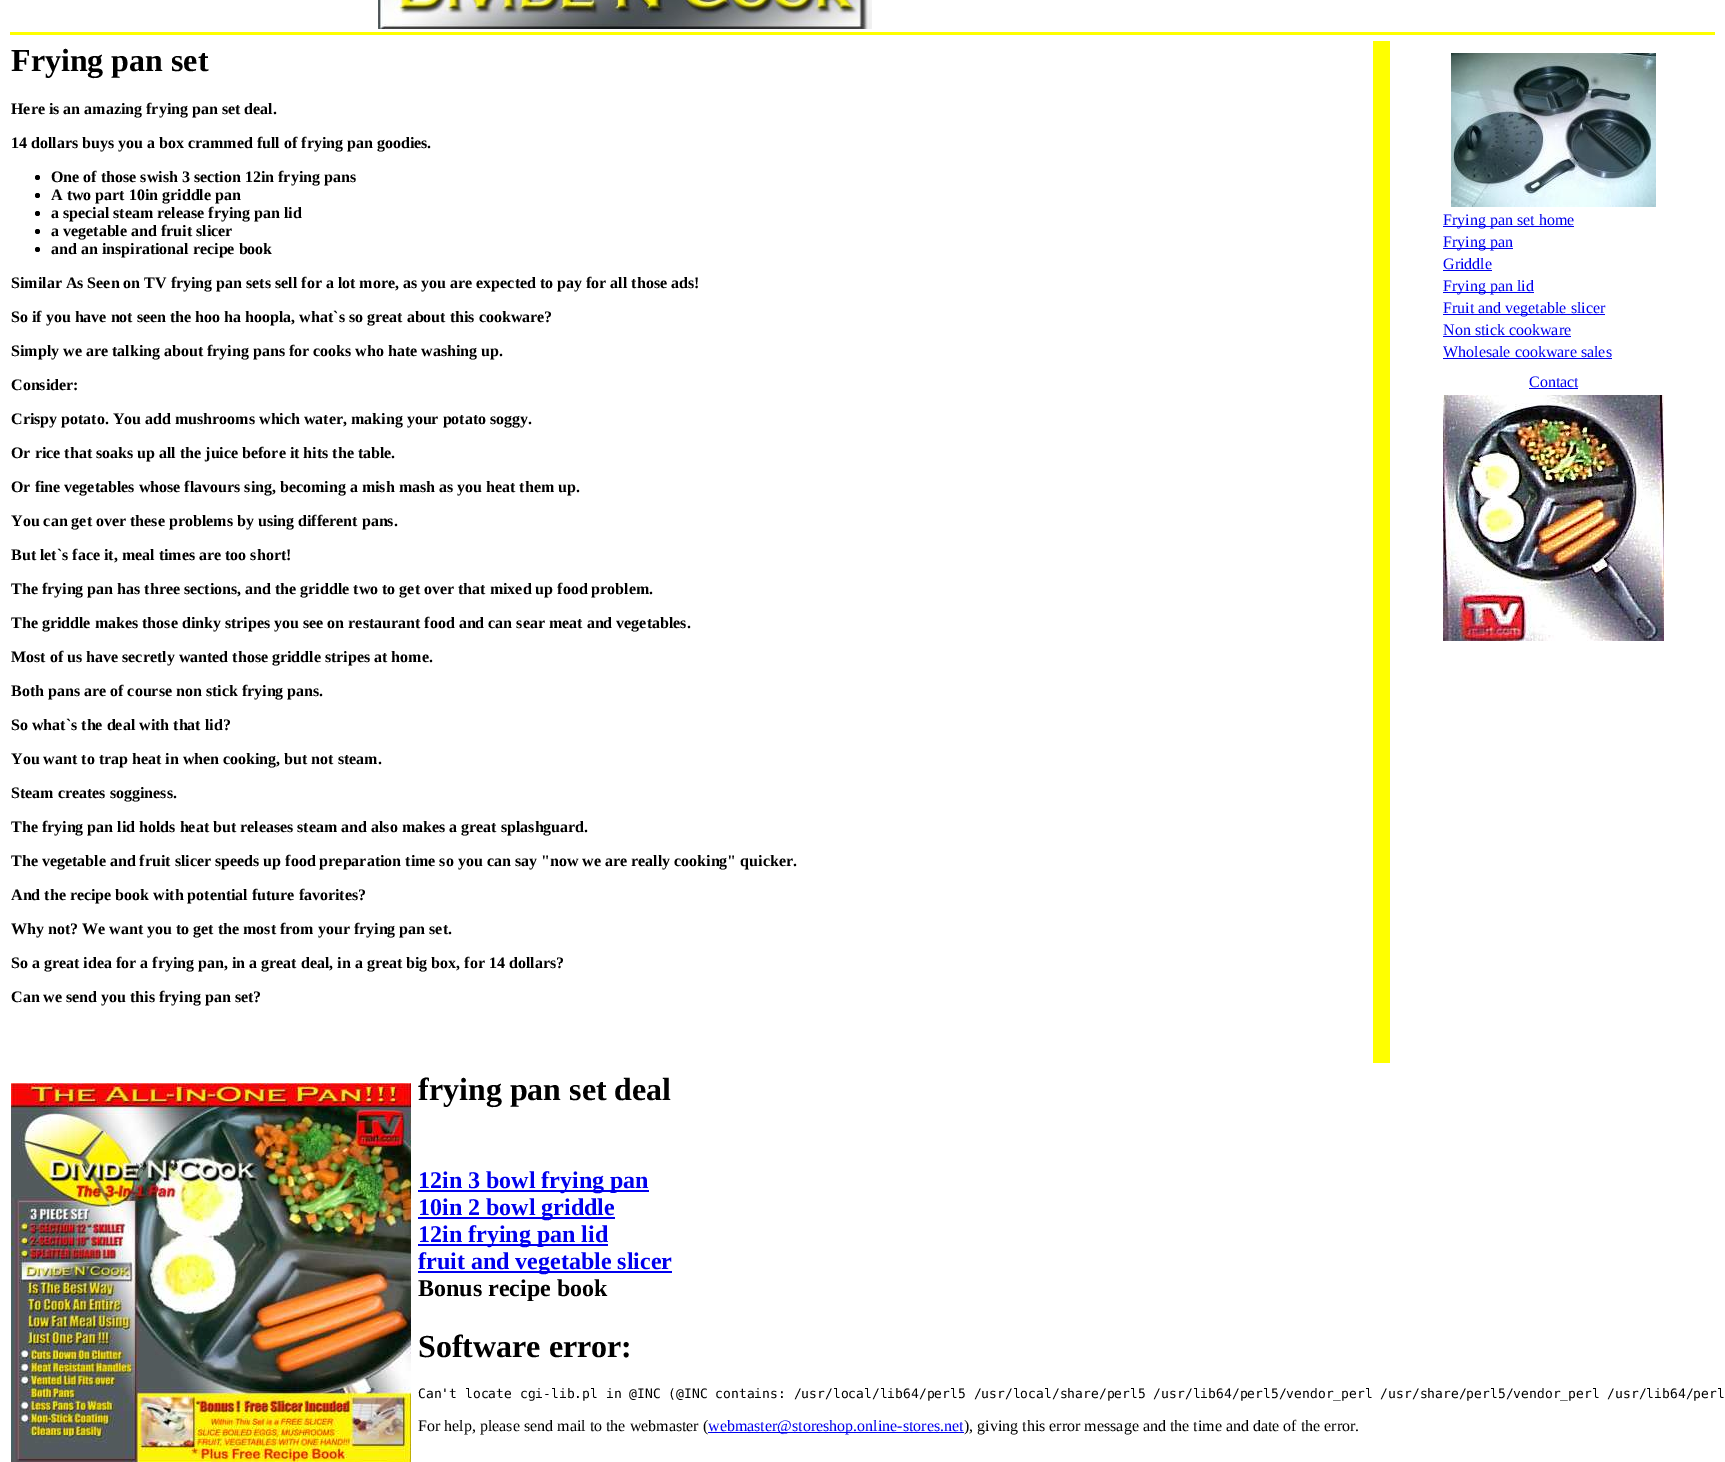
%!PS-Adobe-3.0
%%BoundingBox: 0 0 1725 1462
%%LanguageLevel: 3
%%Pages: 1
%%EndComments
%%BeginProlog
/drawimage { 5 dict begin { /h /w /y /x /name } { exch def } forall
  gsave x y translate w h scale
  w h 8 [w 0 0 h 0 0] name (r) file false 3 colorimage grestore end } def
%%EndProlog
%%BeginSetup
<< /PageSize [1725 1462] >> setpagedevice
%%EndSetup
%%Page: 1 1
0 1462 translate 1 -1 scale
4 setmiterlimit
1 setgray
0 0 1725 1462 rectfill
(images/1.raw) 378 0 494 29 drawimage
1 1 0 setrgbcolor
10 32 1705 3 rectfill
0 setgray
newpath 37.5 177.5 2.5 0 360 arc closepath fill
newpath 37.5 195.5 2.5 0 360 arc closepath fill
newpath 37.5 213.5 2.5 0 360 arc closepath fill
newpath 37.5 231.5 2.5 0 360 arc closepath fill
newpath 37.5 249.5 2.5 0 360 arc closepath fill
1 1 0 setrgbcolor
1373 41 17 1022 rectfill
(images/2.raw) 1451 53 205 154 drawimage
0 0 0.933 setrgbcolor
1443 226 131 1 rectfill
1443 248 70 1 rectfill
1443 270 49 1 rectfill
1443 292 91 1 rectfill
1443 314 162 1 rectfill
1443 336 128 1 rectfill
1443 358 169 1 rectfill
1529 388 49 1 rectfill
(images/3.raw) 1443 395 221 246 drawimage
(images/4.raw) 11 1083 400 379 drawimage
418 1190 231 2 rectfill
418 1217 197 2 rectfill
418 1244 190 2 rectfill
418 1271 254 2 rectfill
708 1432 256 1 rectfill
/LiberationSerif-Bold [32 0 0 -32 0 0] selectfont
0 setgray
11 71 moveto (Frying pan set) show
/LiberationSerif-Bold [16 0 0 -16 0 0] selectfont
11 114 moveto (Here is an amazing frying pan set deal.) show
11 148 moveto (14 dollars buys you a box crammed full of frying pan goodies.) show
51 182 moveto (One of those swish 3 section 12in frying pans) show
51 200 moveto (A two part 10in griddle pan) show
51 218 moveto (a special steam release frying pan lid) show
51 236 moveto (a vegetable and fruit slicer) show
51 254 moveto (and an inspirational recipe book) show
11 288 moveto (Similar As Seen on TV frying pan sets sell for a lot more, as you are expected to pay for all those ads!) show
11 322 moveto (So if you have not seen the hoo ha hoopla, what`s so great about this cookware?) show
11 356 moveto (Simply we are talking about frying pans for cooks who hate washing up.) show
11 390 moveto (Consider:) show
11 424 moveto (Crispy potato. You add mushrooms which water, making your potato soggy.) show
11 458 moveto (Or rice that soaks up all the juice before it hits the table.) show
11 492 moveto (Or fine vegetables whose flavours sing, becoming a mish mash as you heat them up.) show
11 526 moveto (You can get over these problems by using different pans.) show
11 560 moveto (But let`s face it, meal times are too short!) show
11 594 moveto (The frying pan has three sections, and the griddle two to get over that mixed up food problem.) show
11 628 moveto (The griddle makes those dinky stripes you see on restaurant food and can sear meat and vegetables.) show
11 662 moveto (Most of us have secretly wanted those griddle stripes at home.) show
11 696 moveto (Both pans are of course non stick frying pans.) show
11 730 moveto (So what`s the deal with that lid?) show
11 764 moveto (You want to trap heat in when cooking, but not steam.) show
11 798 moveto (Steam creates sogginess.) show
11 832 moveto (The frying pan lid holds heat but releases steam and also makes a great splashguard.) show
11 866 moveto (The vegetable and fruit slicer speeds up food preparation time so you can say "now we are really cooking" quicker.) show
11 900 moveto (And the recipe book with potential future favorites?) show
11 934 moveto (Why not? We want you to get the most from your frying pan set.) show
11 968 moveto (So a great idea for a frying pan, in a great deal, in a great big box, for 14 dollars?) show
11 1002 moveto (Can we send you this frying pan set?) show
/LiberationSerif-Regular [16 0 0 -16 0 0] selectfont
0 0 0.933 setrgbcolor
1443 225 moveto (Frying pan set home) show
1443 247 moveto (Frying pan) show
1443 269 moveto (Griddle) show
1443 291 moveto (Frying pan lid) show
1443 313 moveto (Fruit and vegetable slicer) show
1443 335 moveto (Non stick cookware) show
1443 357 moveto (Wholesale cookware sales) show
1529 387 moveto (Contact) show
/LiberationSerif-Bold [32 0 0 -32 0 0] selectfont
0 setgray
418 1100 moveto (frying pan set deal) show
/LiberationSerif-Bold [24 0 0 -24 0 0] selectfont
0 0 0.933 setrgbcolor
418 1188 moveto (12in 3 bowl frying pan) show
418 1215 moveto (10in 2 bowl griddle) show
418 1242 moveto (12in frying pan lid) show
418 1269 moveto (fruit and vegetable slicer) show
0 setgray
418 1296 moveto (Bonus recipe book) show
/LiberationSerif-Bold [32 0 0 -32 0 0] selectfont
418 1357 moveto (Software error:) show
/DejaVuSansMono-Regular [13 0 0 -13 0 0] selectfont
418 1398 moveto (Can't locate cgi-lib.pl in @INC \(@INC contains: /usr/local/lib64/perl5 /usr/local/share/perl5 /usr/lib64/perl5/vendor_perl /usr/share/perl5/vendor_perl /usr/lib64/perl) show
/LiberationSerif-Regular [16 0 0 -16 0 0] selectfont
418 1431 moveto (For help, please send mail to the webmaster \() show
0 0 0.933 setrgbcolor
708 1431 moveto (webmaster@storeshop.online-stores.net) show
0 setgray
964 1431 moveto (\), giving this error message and the time and date of the error.) show
showpage
%%EOF
